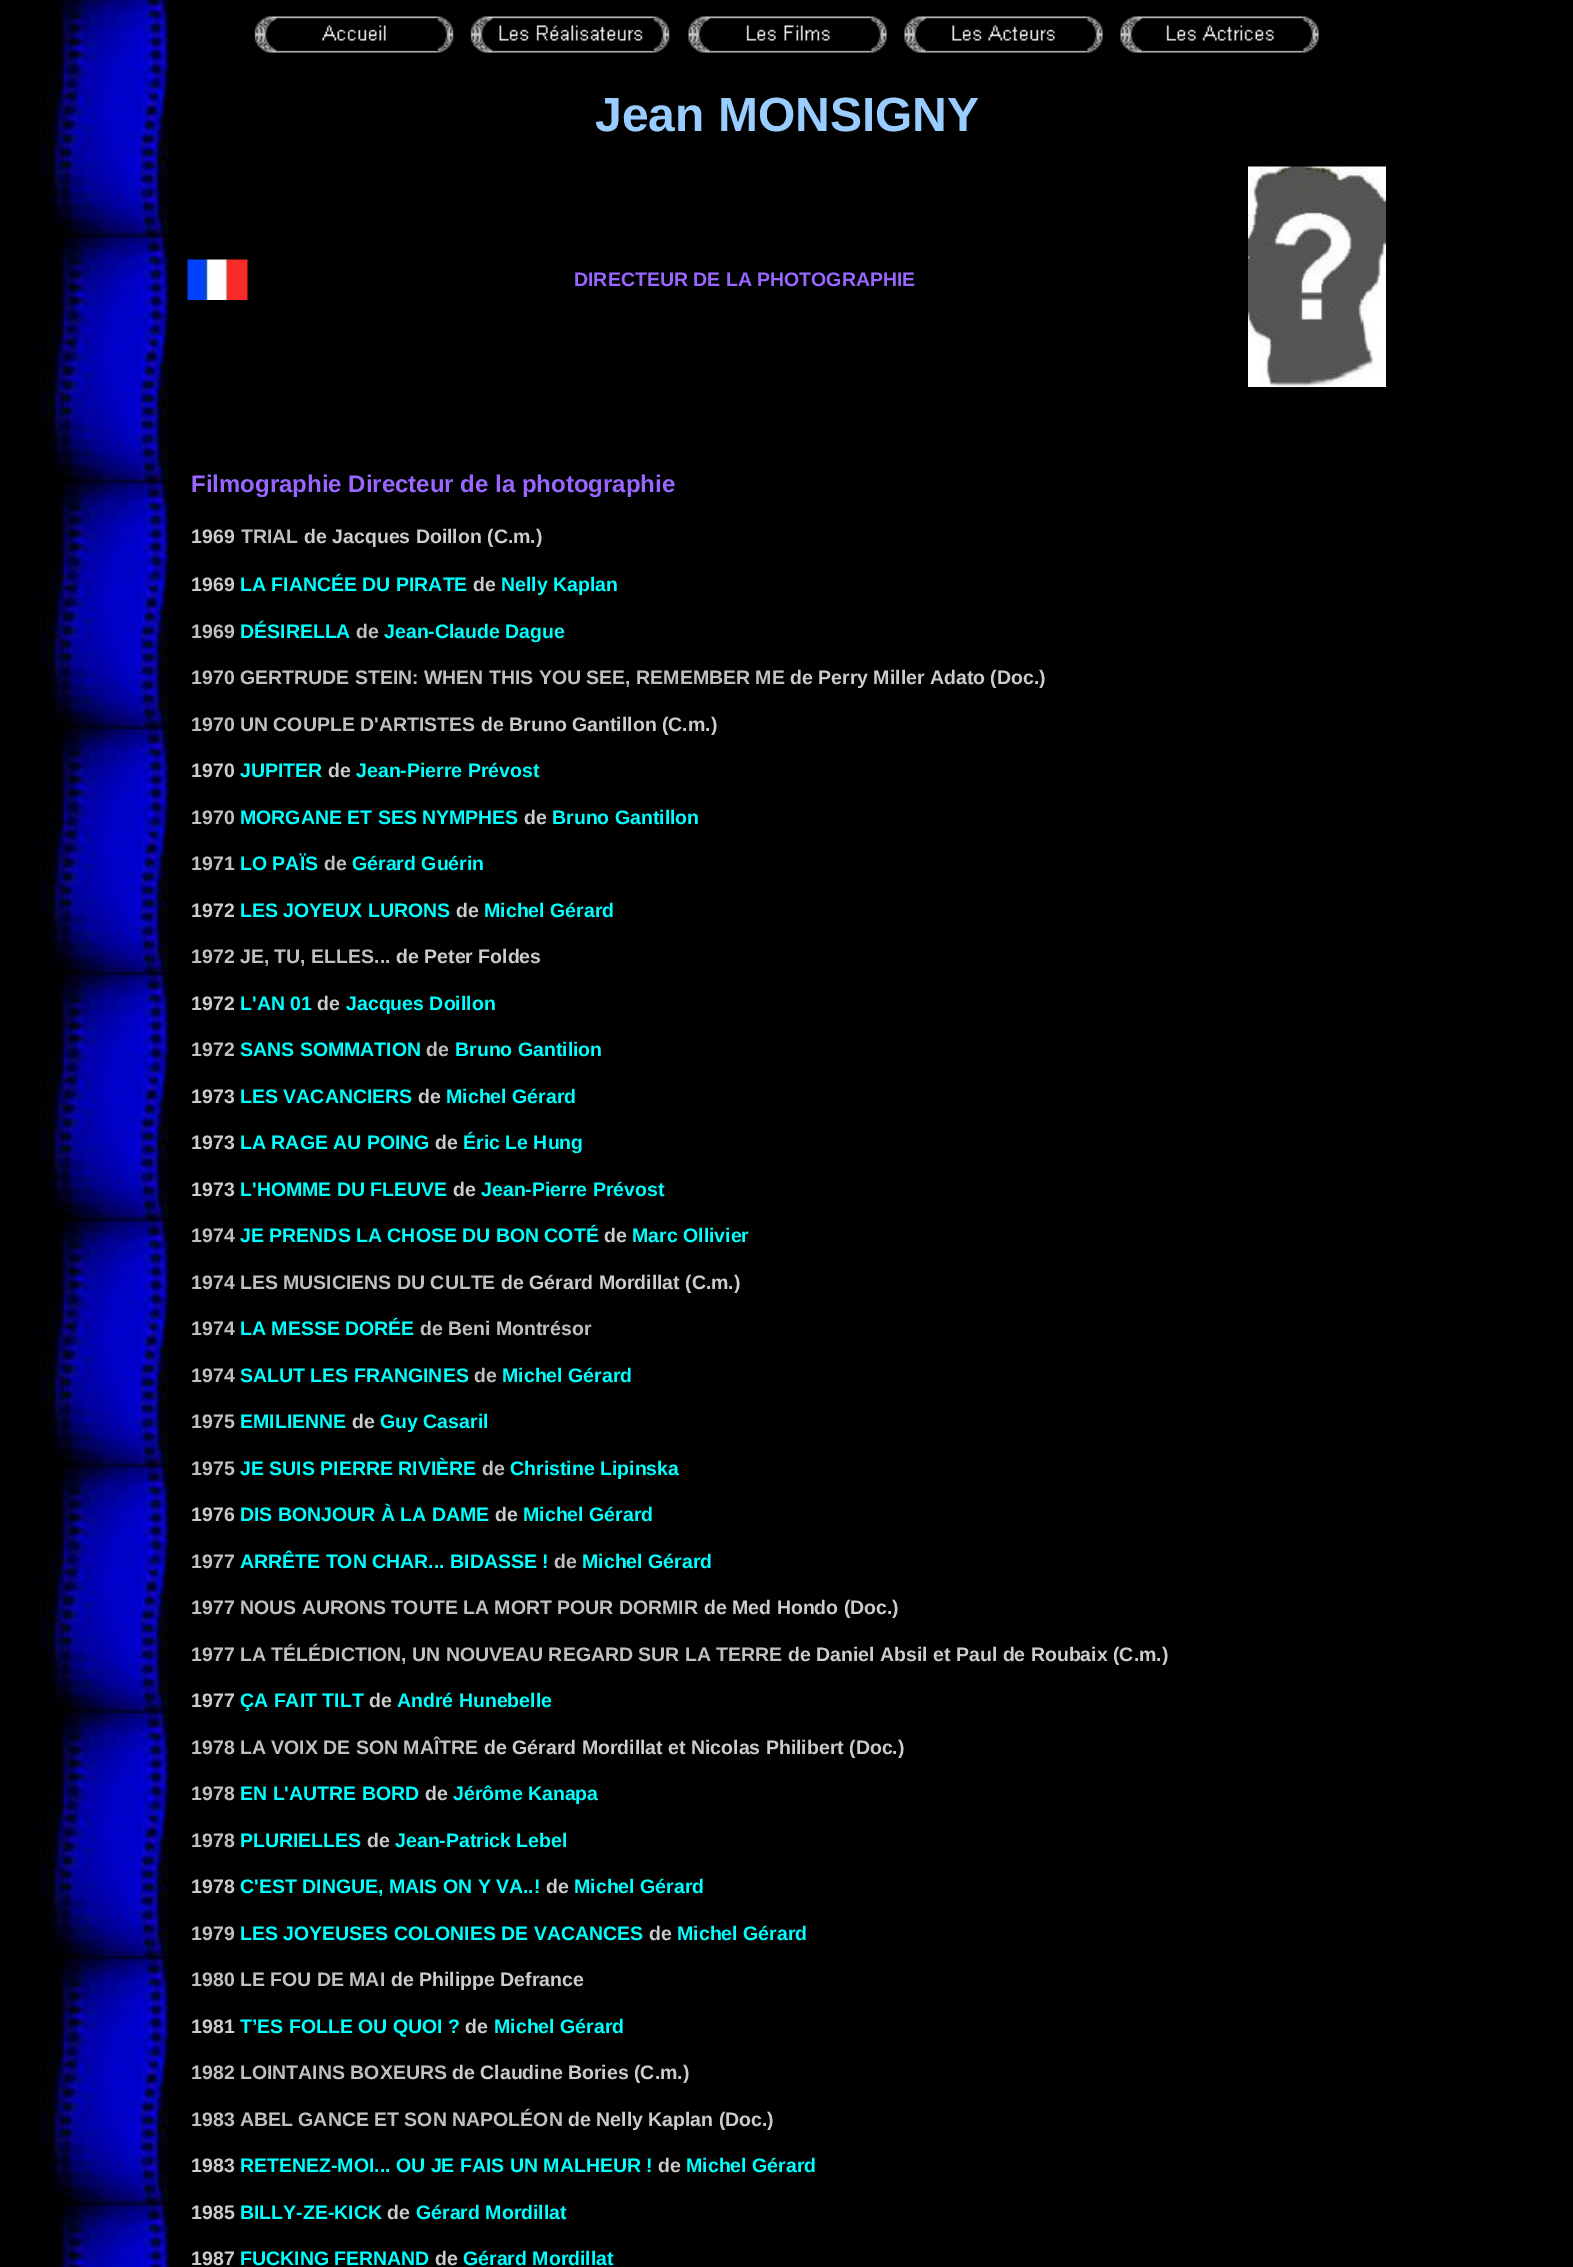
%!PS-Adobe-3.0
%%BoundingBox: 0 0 1573 2267
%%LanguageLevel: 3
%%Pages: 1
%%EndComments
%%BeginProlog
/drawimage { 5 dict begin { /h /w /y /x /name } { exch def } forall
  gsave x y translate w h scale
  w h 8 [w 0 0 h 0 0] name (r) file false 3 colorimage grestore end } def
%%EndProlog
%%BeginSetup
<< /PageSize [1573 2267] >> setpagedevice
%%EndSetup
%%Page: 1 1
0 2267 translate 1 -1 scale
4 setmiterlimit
0 setgray
0 0 1573 2267 rectfill
(images/1.raw) 37 0 133 2267 drawimage
(images/2.raw) 254 16 200 37 drawimage
(images/3.raw) 470 16 200 37 drawimage
(images/4.raw) 688 16 199 37 drawimage
(images/5.raw) 904 16 199 37 drawimage
(images/6.raw) 1120 16 199 37 drawimage
(images/7.raw) 187 259 61 41 drawimage
(images/8.raw) 1248 166 138 221 drawimage
/LiberationSans-Bold [48 0 0 -48 0 0] selectfont
0.6 0.8 1 setrgbcolor
595 131 moveto (Jean MONSIGNY) show
/LiberationSans-Bold [19.5 0 0 -19.5 0 0] selectfont
0.6 0.4 1 setrgbcolor
574 286 moveto (DIRECTEUR DE LA PHOTOGRAPHIE) show
/LiberationSans-Bold [24 0 0 -24 0 0] selectfont
191 492 moveto (Filmographie Directeur de la photographie) show
/LiberationSans-Bold [19.5 0 0 -19.5 0 0] selectfont
0.8 setgray
191 543 moveto (1969) show
0.753 setgray
241 543 moveto (TRIAL) show
0.8 setgray
304 543 moveto (de Jacques Doillon \(C.m.\)) show
191 591 moveto (1969) show
0 1 1 setrgbcolor
240 591 moveto (LA FIANCÉE DU PIRATE) show
0.8 setgray
473 591 moveto (de) show
0 1 1 setrgbcolor
501 591 moveto (Nelly Kaplan) show
0.753 setgray
191 638 moveto (1969) show
0 1 1 setrgbcolor
240 638 moveto (DÉSIRELLA) show
0.753 setgray
356 638 moveto (de) show
0 1 1 setrgbcolor
384 638 moveto (Jean-Claude Dague) show
0.753 setgray
191 684 moveto (1970 GERTRUDE STEIN: WHEN THIS YOU SEE, REMEMBER ME) show
0.8 setgray
790 684 moveto (de Perry Miller Adato \(Doc.\)) show
0.753 setgray
191 731 moveto (1970 UN COUPLE D'ARTISTES) show
0.8 setgray
481 731 moveto (de Bruno Gantillon \(C.m.\)) show
191 777 moveto (1970) show
0 1 1 setrgbcolor
240 777 moveto (JUPITER) show
0.8 setgray
328 777 moveto (de) show
0 1 1 setrgbcolor
356 777 moveto (Jean-Pierre Prévost) show
0.753 setgray
191 824 moveto (1970) show
0 1 1 setrgbcolor
240 824 moveto (MORGANE ET SES NYMPHES) show
0.8 setgray
524 824 moveto (de) show
0 1 1 setrgbcolor
552 824 moveto (Bruno Gantillon) show
0.753 setgray
191 870 moveto (1971) show
0 1 1 setrgbcolor
240 870 moveto (LO PAÏS) show
0.753 setgray
324 870 moveto (de) show
0 1 1 setrgbcolor
352 870 moveto (Gérard Guérin) show
0.8 setgray
191 917 moveto (1972) show
0 1 1 setrgbcolor
240 917 moveto (LES JOYEUX LURONS) show
0.8 setgray
456 917 moveto (de) show
0 1 1 setrgbcolor
484 917 moveto (Michel Gérard) show
0.753 setgray
191 963 moveto (1972 JE, TU, ELLES...) show
0.8 setgray
396 963 moveto (de Peter Foldes) show
191 1010 moveto (1972) show
0 1 1 setrgbcolor
240 1010 moveto (L'AN 01) show
0.8 setgray
317 1010 moveto (de) show
0 1 1 setrgbcolor
346 1010 moveto (Jacques Doillon) show
0.753 setgray
191 1056 moveto (1972) show
0 1 1 setrgbcolor
240 1056 moveto (SANS SOMMATION) show
0.753 setgray
426 1056 moveto (de) show
0 1 1 setrgbcolor
455 1056 moveto (Bruno Gantilion) show
0.8 setgray
191 1103 moveto (1973) show
0 1 1 setrgbcolor
240 1103 moveto (LES VACANCIERS) show
0.8 setgray
418 1103 moveto (de) show
0 1 1 setrgbcolor
446 1103 moveto (Michel Gérard) show
0.8 setgray
191 1149 moveto (1973) show
0 1 1 setrgbcolor
240 1149 moveto (LA RAGE AU POING) show
0.8 setgray
435 1149 moveto (de) show
0 1 1 setrgbcolor
463 1149 moveto (Éric Le Hung) show
0.8 setgray
191 1196 moveto (1973) show
0 1 1 setrgbcolor
240 1196 moveto (L'HOMME DU FLEUVE) show
0.8 setgray
453 1196 moveto (de) show
0 1 1 setrgbcolor
481 1196 moveto (Jean-Pierre Prévost) show
0.753 setgray
191 1242 moveto (1974) show
0 1 1 setrgbcolor
240 1242 moveto (JE PRENDS LA CHOSE DU BON COTÉ) show
0.8 setgray
604 1242 moveto (de) show
0 1 1 setrgbcolor
632 1242 moveto (Marc Ollivier) show
0.753 setgray
191 1289 moveto (1974 LES MUSICIENS DU CULTE) show
0.8 setgray
501 1289 moveto (de Gérard Mordillat \(C.m.\)) show
0.753 setgray
191 1335 moveto (1974) show
0 1 1 setrgbcolor
240 1335 moveto (LA MESSE DORÉE) show
0.753 setgray
420 1335 moveto (de Beni Montrésor) show
191 1382 moveto (1974) show
0 1 1 setrgbcolor
240 1382 moveto (SALUT LES FRANGINES) show
0.753 setgray
474 1382 moveto (de) show
0 1 1 setrgbcolor
502 1382 moveto (Michel Gérard) show
0.753 setgray
191 1428 moveto (1975) show
0 1 1 setrgbcolor
240 1428 moveto (EMILIENNE) show
0.8 setgray
352 1428 moveto (de) show
0 1 1 setrgbcolor
380 1428 moveto (Guy Casaril) show
0.753 setgray
191 1475 moveto (1975) show
0 1 1 setrgbcolor
240 1475 moveto (JE SUIS PIERRE RIVIÈRE) show
0.753 setgray
482 1475 moveto (de) show
0 1 1 setrgbcolor
510 1475 moveto (Christine Lipinska) show
0.8 setgray
191 1521 moveto (1976) show
0 1 1 setrgbcolor
240 1521 moveto (DIS BONJOUR À LA DAME) show
0.8 setgray
495 1521 moveto (de) show
0 1 1 setrgbcolor
523 1521 moveto (Michel Gérard) show
0.753 setgray
191 1568 moveto (1977) show
0 1 1 setrgbcolor
240 1568 moveto (ARRÊTE TON CHAR... BIDASSE !) show
0.753 setgray
554 1568 moveto (de) show
0 1 1 setrgbcolor
582 1568 moveto (Michel Gérard) show
0.753 setgray
191 1614 moveto (1977 NOUS AURONS TOUTE LA MORT POUR DORMIR) show
0.8 setgray
704 1614 moveto (de Med Hondo \(Doc.\)) show
0.753 setgray
191 1661 moveto (1977 LA TÉLÉDICTION, UN NOUVEAU REGARD SUR LA TERRE) show
0.8 setgray
788 1661 moveto (de Daniel Absil et Paul de Roubaix \(C.m.\)) show
191 1707 moveto (1977) show
0 1 1 setrgbcolor
240 1707 moveto (ÇA FAIT TILT) show
0.8 setgray
369 1707 moveto (de) show
0 1 1 setrgbcolor
397 1707 moveto (André Hunebelle) show
0.753 setgray
191 1754 moveto (1978 LA VOIX DE SON MAÎTRE) show
0.8 setgray
484 1754 moveto (de Gérard Mordillat et Nicolas Philibert \(Doc.\)) show
0.753 setgray
191 1800 moveto (1978) show
0 1 1 setrgbcolor
240 1800 moveto (EN L'AUTRE BORD) show
0.8 setgray
425 1800 moveto (de) show
0 1 1 setrgbcolor
453 1800 moveto (Jérôme Kanapa) show
0.753 setgray
191 1847 moveto (1978) show
0 1 1 setrgbcolor
240 1847 moveto (PLURIELLES) show
0.8 setgray
367 1847 moveto (de) show
0 1 1 setrgbcolor
395 1847 moveto (Jean-Patrick Lebel) show
0.8 setgray
191 1893 moveto (1978) show
0 1 1 setrgbcolor
240 1893 moveto (C'EST DINGUE, MAIS ON Y VA..!) show
0.8 setgray
546 1893 moveto (de) show
0 1 1 setrgbcolor
574 1893 moveto (Michel Gérard) show
0.753 setgray
191 1940 moveto (1979) show
0 1 1 setrgbcolor
240 1940 moveto (LES JOYEUSES COLONIES DE VACANCES) show
0.8 setgray
649 1940 moveto (de) show
0 1 1 setrgbcolor
677 1940 moveto (Michel Gérard) show
0.753 setgray
191 1986 moveto (1980 LE FOU DE MAI) show
0.8 setgray
391 1986 moveto (de Philippe Defrance) show
191 2033 moveto (1981) show
0 1 1 setrgbcolor
240 2033 moveto (T’ES FOLLE OU QUOI ?) show
0.8 setgray
465 2033 moveto (de) show
0 1 1 setrgbcolor
494 2033 moveto (Michel Gérard) show
0.753 setgray
191 2079 moveto (1982 LOINTAINS BOXEURS) show
0.8 setgray
452 2079 moveto (de Claudine Bories \(C.m.\)) show
0.753 setgray
191 2126 moveto (1983 ABEL GANCE ET SON NAPOLÉON) show
0.8 setgray
568 2126 moveto (de Nelly Kaplan \(Doc.\)) show
191 2172 moveto (1983) show
0 1 1 setrgbcolor
240 2172 moveto (RETENEZ-MOI... OU JE FAIS UN MALHEUR !) show
0.8 setgray
658 2172 moveto (de) show
0 1 1 setrgbcolor
686 2172 moveto (Michel Gérard) show
0.8 setgray
191 2219 moveto (1985) show
0 1 1 setrgbcolor
240 2219 moveto (BILLY-ZE-KICK) show
0.8 setgray
387 2219 moveto (de) show
0 1 1 setrgbcolor
416 2219 moveto (Gérard Mordillat) show
0.8 setgray
191 2265 moveto (1987) show
0 1 1 setrgbcolor
240 2265 moveto (FUCKING FERNAND) show
0.8 setgray
435 2265 moveto (de) show
0 1 1 setrgbcolor
463 2265 moveto (Gérard Mordillat) show
showpage
%%EOF
